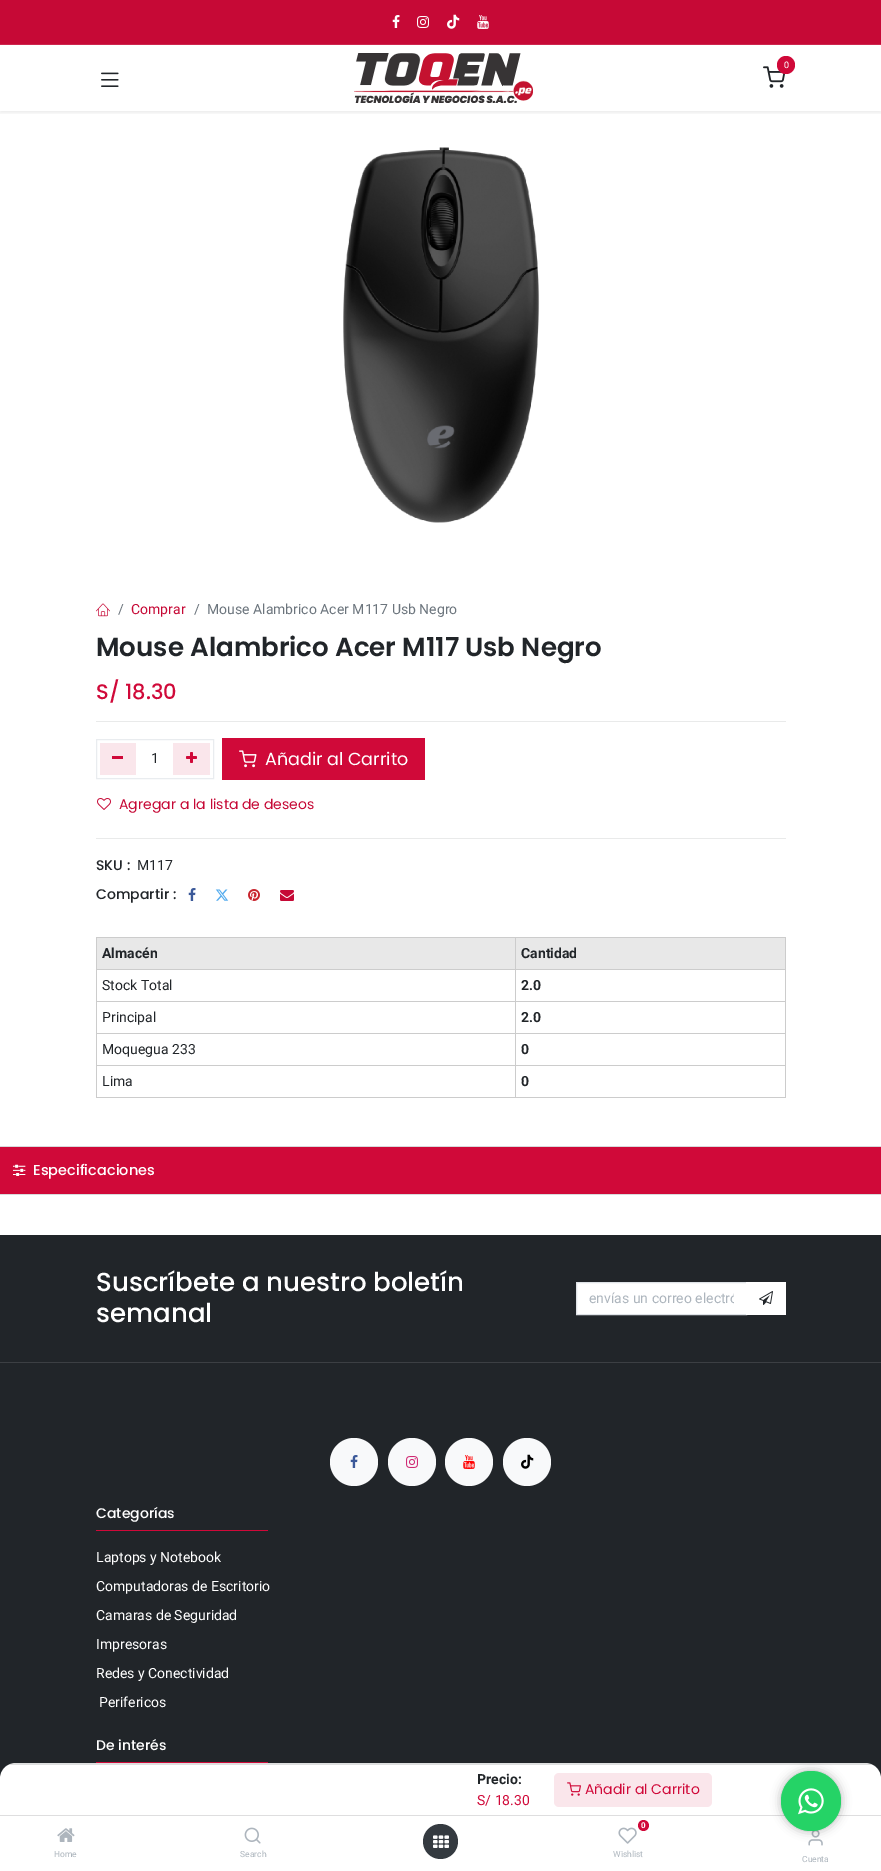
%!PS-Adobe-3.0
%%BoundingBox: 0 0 881 1871
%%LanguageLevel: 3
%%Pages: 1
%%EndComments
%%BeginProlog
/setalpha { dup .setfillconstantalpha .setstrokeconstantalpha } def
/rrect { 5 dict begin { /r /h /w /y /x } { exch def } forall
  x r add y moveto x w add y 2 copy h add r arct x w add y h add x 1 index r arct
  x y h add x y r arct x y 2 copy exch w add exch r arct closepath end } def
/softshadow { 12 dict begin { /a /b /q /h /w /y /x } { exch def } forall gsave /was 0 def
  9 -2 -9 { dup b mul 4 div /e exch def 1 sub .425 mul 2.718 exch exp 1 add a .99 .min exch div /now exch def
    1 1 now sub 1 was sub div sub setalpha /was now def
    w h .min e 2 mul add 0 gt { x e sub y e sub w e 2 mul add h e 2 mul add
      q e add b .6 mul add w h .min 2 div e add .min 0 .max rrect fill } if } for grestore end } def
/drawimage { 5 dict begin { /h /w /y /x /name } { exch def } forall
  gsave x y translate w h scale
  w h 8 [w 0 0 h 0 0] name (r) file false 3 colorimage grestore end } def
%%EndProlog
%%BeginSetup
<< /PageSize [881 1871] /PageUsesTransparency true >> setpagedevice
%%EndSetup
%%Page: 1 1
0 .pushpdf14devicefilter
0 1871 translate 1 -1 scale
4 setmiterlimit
1 setgray
0 0 881 1871 rectfill
0.776 0.035 0.212 setrgbcolor
0 0 881 44 rectfill
0.804 0.153 0.306 setrgbcolor
0 44 881 1 rectfill
(images/1.raw) 392 15 8 13 drawimage
(images/2.raw) 417 16 12 12 drawimage
(images/3.raw) 447 14 13 15 drawimage
(images/4.raw) 477 15 12 14 drawimage
gsave
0 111 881 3 rectclip
0 setgray
0 47 881 66 0 2 0.07 softshadow
grestore
(images/5.raw) 354 53 179 50 drawimage
(images/6.raw) 763 66 23 22 drawimage
0.816 0.035 0.224 setrgbcolor
newpath 786 65 9 0 360 arc closepath fill
(images/7.raw) 101 72 18 15 drawimage
(images/8.raw) 343 147 197 376 drawimage
(images/9.raw) 96 603 14 14 drawimage
0.914 0.918 0.918 setrgbcolor
96 721 690 1 rectfill
0.914 0.925 0.937 setrgbcolor
96.5 739.5 117 39 rectstroke
0.98 0.902 0.922 setrgbcolor
100 743 36 32 rectfill
0.816 0.035 0.224 setrgbcolor
112 756 11 3 rectfill
0.98 0.902 0.922 setrgbcolor
173 743 37 32 rectfill
(images/10.raw) 186 752 11 11 drawimage
0.816 0.035 0.224 setrgbcolor
222 738 203 42 rectfill
(images/11.raw) 239 750 18 18 drawimage
(images/12.raw) 97 798 14 12 drawimage
0.914 0.918 0.918 setrgbcolor
96 838 690 1 rectfill
(images/13.raw) 188 888 8 13 drawimage
(images/14.raw) 215 889 14 12 drawimage
(images/15.raw) 248 889 12 12 drawimage
(images/16.raw) 280 890 14 11 drawimage
0.91 setgray
97 938 688 31 rectfill
0.8 setgray
515 937 271 1 rectfill
515 969 271 1 rectfill
515 1001 271 1 rectfill
515 1033 271 1 rectfill
515 1065 271 1 rectfill
785 1065 1 33 rectfill
515 1097 271 1 rectfill
515 1065 1 33 rectfill
96 1065 420 1 rectfill
515 1033 1 33 rectfill
96 1033 420 1 rectfill
515 1001 1 33 rectfill
96 1001 420 1 rectfill
515 969 1 33 rectfill
96 969 420 1 rectfill
515 937 1 33 rectfill
96 937 420 1 rectfill
96 1097 420 1 rectfill
96 1065 1 33 rectfill
96 1033 1 33 rectfill
96 1001 1 33 rectfill
96 969 1 33 rectfill
96 937 1 33 rectfill
785 1033 1 33 rectfill
785 1001 1 33 rectfill
785 969 1 33 rectfill
785 937 1 33 rectfill
0.847 0.851 0.859 setrgbcolor
0 1146 881 1 rectfill
0 1194 881 1 rectfill
0.816 0.035 0.224 setrgbcolor
0 1147 881 47 rectfill
(images/17.raw) 13 1164 13 12 drawimage
0.129 0.145 0.161 setrgbcolor
0 1235 881 544 rectfill
0.235 0.247 0.263 setrgbcolor
0 1362 881 1 rectfill
1 setgray
newpath 576.5 1282.5 moveto 746.5 1282.5 lineto 746.5 1314.5 lineto 576.5 1314.5 lineto closepath gsave fill grestore
0.871 0.886 0.902 setrgbcolor
stroke
1 setgray
746 1282 40 33 rectfill
(images/18.raw) 759 1291 14 14 drawimage
0.973 0.976 0.98 setrgbcolor
newpath 354 1462 24 0 360 arc closepath fill
(images/19.raw) 350 1455 8 13 drawimage
newpath 412 1462 24 0 360 arc closepath fill
(images/20.raw) 406 1456 12 12 drawimage
newpath 469 1462 24 0 360 arc closepath fill
(images/21.raw) 463 1455 12 14 drawimage
newpath 527 1462 24 0 360 arc closepath fill
(images/22.raw) 521 1454 13 15 drawimage
0.816 0.035 0.224 setrgbcolor
96 1530 172 1 rectfill
96 1762 172 1 rectfill
1 setgray
newpath 16 1763 moveto 865 1763 lineto 874 1763 881 1770 881 1779 curveto 881 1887 lineto 0 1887 lineto 0 1779 lineto 0 1770 7 1763 16 1763 curveto closepath fill
0.15 setalpha
0.129 0.145 0.161 setrgbcolor
8 1763 865 2 rectfill
1 setalpha
0.871 0.871 0.875 setrgbcolor
0 1815 881 1 rectfill
0.98 0.902 0.922 setrgbcolor
554 1773 158 34 5 rrect fill
(images/23.raw) 567 1782 14 14 drawimage
(images/24.raw) 57 1828 18 14 drawimage
(images/25.raw) 244 1827 17 17 drawimage
0.204 0.227 0.251 setrgbcolor
newpath 440.5 1841.5 17.5 0 360 arc closepath fill
(images/26.raw) 433 1835 16 13 drawimage
0.816 0.035 0.224 setrgbcolor
newpath 643.5 1825.5 5.5 0 360 arc closepath fill
(images/27.raw) 618 1827 19 17 drawimage
(images/28.raw) 808 1830 15 16 drawimage
0 setgray
781 1771 60 60 30 5 0.3 softshadow
0.145 0.827 0.4 setrgbcolor
newpath 811 1801 30 0 360 arc closepath fill
0.5 setalpha
newpath 811 1801 30 0 360 arc closepath fill
1 setalpha
(images/29.raw) 798 1788 26 27 drawimage
/Roboto-Regular [9 0 0 -9 0 0] selectfont
1 setgray
784 68 moveto (0) show
/Roboto-Regular [14 0 0 -14 0 0] selectfont
0.424 0.459 0.49 setrgbcolor
118 614 moveto (/) show
0.776 0.035 0.212 setrgbcolor
131 614 moveto (Comprar) show
0.424 0.459 0.49 setrgbcolor
194 614 moveto (/) show
207 614 moveto (Mouse Alambrico Acer M117 Usb Negro) show
/Poppins-SemiBold [26.1 0 0 -26.1 0 0] selectfont
0.129 0.145 0.161 setrgbcolor
96 656 moveto (Mouse Alambrico Acer M117 Usb Negro) show
/Poppins-Medium [21 0 0 -21 0 0] selectfont
0.816 0.035 0.224 setrgbcolor
96 699 moveto (S/ 18.30) show
/Roboto-Regular [14 0 0 -14 0 0] selectfont
0.129 0.145 0.161 setrgbcolor
151 763 moveto (1) show
/Poppins-Regular [17.5 0 0 -17.5 0 0] selectfont
1 setgray
265 765 moveto (Añadir al Carrito) show
/Poppins-Regular [14 0 0 -14 0 0] selectfont
0.776 0.035 0.212 setrgbcolor
119 809 moveto (Agregar a la lista de deseos) show
/Poppins-Medium [14 0 0 -14 0 0] selectfont
0.129 0.145 0.161 setrgbcolor
96 870 moveto (SKU :) show
/Roboto-Regular [14 0 0 -14 0 0] selectfont
137 870 moveto (M117) show
/Poppins-Medium [14 0 0 -14 0 0] selectfont
96 899 moveto (Compartir :) show
/Roboto-Bold [14 0 0 -14 0 0] selectfont
102 958 moveto (Almacén) show
521 958 moveto (Cantidad) show
/Roboto-Regular [14 0 0 -14 0 0] selectfont
102 990 moveto (Stock Total) show
/Roboto-Bold [14 0 0 -14 0 0] selectfont
521 990 moveto (2.0) show
/Roboto-Regular [14 0 0 -14 0 0] selectfont
102 1022 moveto (Principal) show
/Roboto-Bold [14 0 0 -14 0 0] selectfont
521 1022 moveto (2.0) show
/Roboto-Regular [14 0 0 -14 0 0] selectfont
102 1054 moveto (Moquegua 233) show
/Roboto-Bold [14 0 0 -14 0 0] selectfont
521 1054 moveto (0) show
/Roboto-Regular [14 0 0 -14 0 0] selectfont
102 1086 moveto (Lima) show
/Roboto-Bold [14 0 0 -14 0 0] selectfont
521 1086 moveto (0) show
/Poppins-Medium [14.5 0 0 -14.5 0 0] selectfont
1 setgray
33 1175 moveto (Especificaciones) show
/Poppins-Medium [26.1 0 0 -26.1 0 0] selectfont
96 1291 moveto (Suscríbete a nuestro boletín) show
96 1322 moveto (semanal) show
gsave
589 1290 145 16 rectclip
/Roboto-Regular [14 0 0 -14 0 0] selectfont
0.678 0.71 0.741 setrgbcolor
589 1303 moveto (envías un correo electró) show
grestore
/Poppins-Medium [14 0 0 -14 0 0] selectfont
96 1518 moveto (Categorías) show
/Roboto-Regular [14 0 0 -14 0 0] selectfont
96 1562 moveto (Laptops y Notebook) show
96 1591 moveto (Computadoras de Escritorio) show
96 1620 moveto (Camaras de Seguridad) show
96 1649 moveto (Impresoras) show
96 1678 moveto (Redes y Conectividad) show
99 1707 moveto (Perifericos) show
/Poppins-Medium [14 0 0 -14 0 0] selectfont
96 1750 moveto (De interés) show
/Roboto-Bold [14 0 0 -14 0 0] selectfont
0.129 0.145 0.161 setrgbcolor
477 1784 moveto (Precio:) show
/Roboto-Regular [14 0 0 -14 0 0] selectfont
0.816 0.035 0.224 setrgbcolor
477 1805 moveto (S/ 18.30) show
/Poppins-Regular [14 0 0 -14 0 0] selectfont
585 1794 moveto (Añadir al Carrito) show
/Roboto-Regular [8.5 0 0 -8.5 0 0] selectfont
0.678 0.71 0.741 setrgbcolor
54 1857 moveto (Home) show
240 1857 moveto (Search) show
/Roboto-Bold [8 0 0 -8 0 0] selectfont
1 setgray
641 1828 moveto (0) show
/Roboto-Regular [8.5 0 0 -8.5 0 0] selectfont
0.678 0.71 0.741 setrgbcolor
613 1857 moveto (Wishlist) show
802 1862 moveto (Cuenta) show
.poppdf14devicefilter showpage
%%EOF
